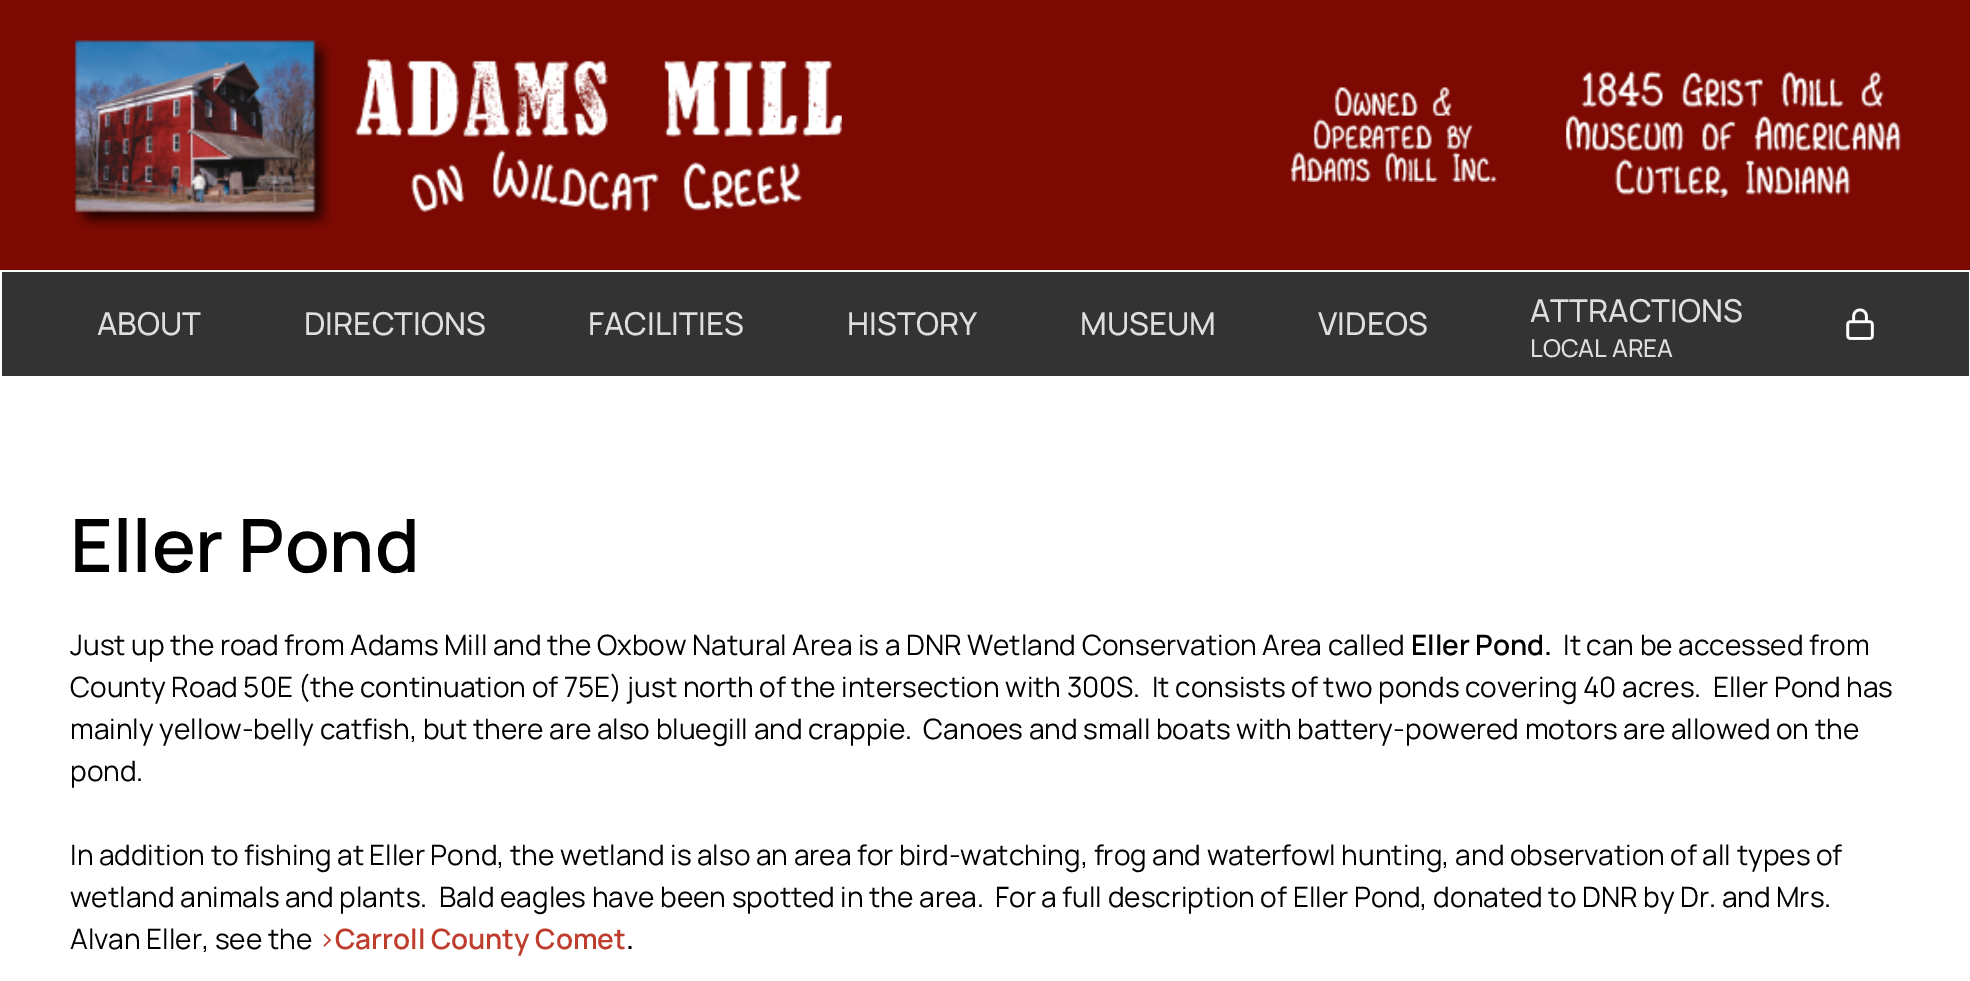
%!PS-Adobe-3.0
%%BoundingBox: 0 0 1970 981
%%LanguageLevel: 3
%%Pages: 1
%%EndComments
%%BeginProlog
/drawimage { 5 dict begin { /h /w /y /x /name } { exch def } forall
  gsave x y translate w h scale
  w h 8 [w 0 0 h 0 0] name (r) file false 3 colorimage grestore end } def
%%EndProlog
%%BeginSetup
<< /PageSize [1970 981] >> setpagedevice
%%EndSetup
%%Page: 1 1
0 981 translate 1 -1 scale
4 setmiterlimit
1 setgray
0 0 1970 981 rectfill
0.486 0.039 0.008 setrgbcolor
0 0 1970 270 rectfill
(images/1.raw) 74 39 258 190 drawimage
(images/2.raw) 355 59 487 153 drawimage
(images/3.raw) 1289 87 208 95 drawimage
(images/4.raw) 1566 71 335 127 drawimage
0.2 setgray
2 272 1967 104 rectfill
(images/5.raw) 1846 308 28 32 drawimage
/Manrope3-ExtraLight [31.5 0 0 -31.5 0 0] selectfont
0.871 setgray
97 335 moveto (ABOUT) show
304 335 moveto (DIRECTIONS) show
588 335 moveto (FACILITIES) show
847 335 moveto (HISTORY) show
1080 335 moveto (MUSEUM) show
1318 335 moveto (VIDEOS) show
1530 322 moveto (ATTRACTIONS) show
/Manrope3-ExtraLight [24.5 0 0 -24.5 0 0] selectfont
1530 357 moveto (LOCAL AREA) show
/Manrope-ExtraLight [73.5 0 0 -73.5 0 0] selectfont
0 setgray
70 572 moveto (Eller Pond) show
/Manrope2-ExtraLight [28 0 0 -28 0 0] selectfont
70 655 moveto (Just up the road from Adams Mill and the Oxbow Natural Area is a DNR Wetland Conservation Area called) show
/Manrope-ExtraLight [28 0 0 -28 0 0] selectfont
1411 655 moveto (Eller Pond.) show
/Manrope2-ExtraLight [28 0 0 -28 0 0] selectfont
1563 655 moveto (It can be accessed from) show
70 697 moveto (County Road 50E \(the continuation of 75E\) just north of the intersection with 300S.  It consists of two ponds covering 40 acres.  Eller Pond has) show
70 739 moveto (mainly yellow-belly catfish, but there are also bluegill and crappie.  Canoes and small boats with battery-powered motors are allowed on the) show
70 781 moveto (pond.) show
70 865 moveto (In addition to fishing at Eller Pond, the wetland is also an area for bird-watching, frog and waterfowl hunting, and observation of all types of) show
70 907 moveto (wetland animals and plants.  Bald eagles have been spotted in the area.  For a full description of Eller Pond, donated to DNR by Dr. and Mrs.) show
70 949 moveto (Alvan Eller, see the) show
0.745 0.239 0.173 setrgbcolor
318 949 moveto (>) show
/Manrope-ExtraLight [28 0 0 -28 0 0] selectfont
335 949 moveto (Carroll County Comet) show
0 setgray
626 949 moveto (.) show
showpage
%%EOF
